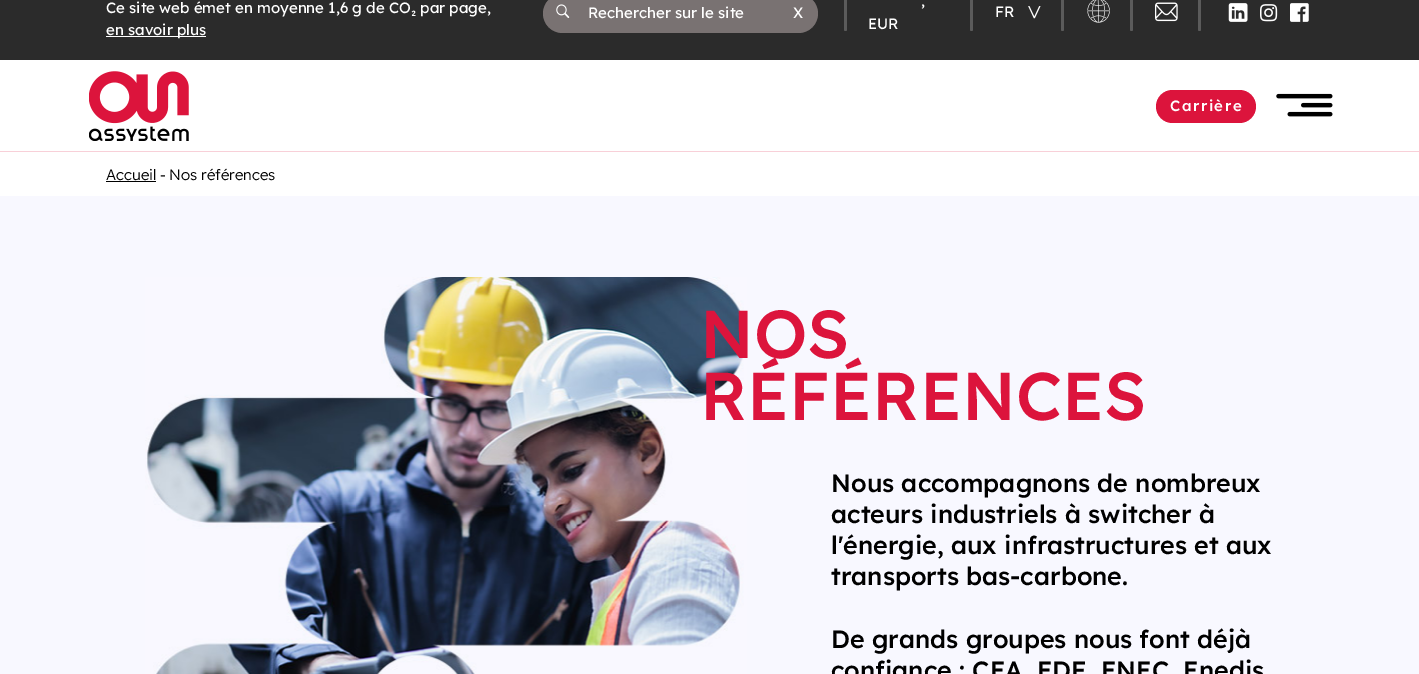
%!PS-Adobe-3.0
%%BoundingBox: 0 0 1419 674
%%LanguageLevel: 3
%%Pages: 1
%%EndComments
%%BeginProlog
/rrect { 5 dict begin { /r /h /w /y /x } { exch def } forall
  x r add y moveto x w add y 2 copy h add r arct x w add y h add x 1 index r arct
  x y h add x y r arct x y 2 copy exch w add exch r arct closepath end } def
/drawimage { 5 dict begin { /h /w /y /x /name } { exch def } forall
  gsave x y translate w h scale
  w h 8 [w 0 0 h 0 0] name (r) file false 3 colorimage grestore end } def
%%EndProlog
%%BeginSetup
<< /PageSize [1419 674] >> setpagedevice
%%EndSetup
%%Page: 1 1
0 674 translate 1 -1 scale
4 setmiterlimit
1 setgray
0 0 1419 674 rectfill
0.169 setgray
0 0 1419 60 rectfill
1 setgray
106 36 100 1 rectfill
0.475 0.447 0.447 setrgbcolor
543 -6 275 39 19.5 rrect fill
(images/1.raw) 556 4 14 14 drawimage
0.357 setgray
844 -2 3 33 1.5 rrect fill
970 -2 3 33 1.5 rrect fill
(images/2.raw) 1028 6 13 13 drawimage
1061 -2 3 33 1.5 rrect fill
(images/3.raw) 1087 0 23 23 drawimage
1130 -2 3 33 1.5 rrect fill
(images/4.raw) 1155 2 23 20 drawimage
1198 -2 3 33 1.5 rrect fill
(images/5.raw) 1228 3 20 19 drawimage
(images/6.raw) 1260 4 18 18 drawimage
(images/7.raw) 1290 3 19 19 drawimage
0.973 0.816 0.847 setrgbcolor
0 151 1419 1 rectfill
(images/8.raw) 89 71 100 70 drawimage
0.863 0.078 0.235 setrgbcolor
1156 90 100 33 16.5 rrect fill
(images/9.raw) 1276 93 57 24 drawimage
0 setgray
106 181 50 1 rectfill
0.973 0.973 1 setrgbcolor
0 196 1419 478 rectfill
(images/10.raw) 145 277 602 397 drawimage
/Lexend-Regular [15 0 0 -15 0 0] selectfont
1 setgray
106 13 moveto (Ce site web émet en moyenne 1,6 g de CO₂ par page,) show
106 35 moveto (en savoir plus) show
588 18 moveto (Rechercher sur le site) show
793 18 moveto (X) show
921 6 moveto (,) show
868 29 moveto (EUR) show
995 17 moveto (FR) show
/Lexend-Medium [15 0 0 -15 0 0] selectfont
1170 111 moveto 1.5 0 (Carrière) ashow
/Lexend-Light [15 0 0 -15 0 0] selectfont
0 setgray
106 180 moveto (Accueil) show
160 180 moveto (-) show
169 180 moveto (Nos références) show
/Lexend-Medium [67.5 0 0 -67.5 0 0] selectfont
0.863 0.078 0.235 setrgbcolor
700 358 moveto (NOS) show
700 420 moveto (RÉFÉRENCES) show
/Lexend-Medium [25 0 0 -25 0 0] selectfont
0 setgray
831 492 moveto (Nous accompagnons de nombreux) show
831 523 moveto (acteurs industriels à switcher à) show
831 554 moveto (l'énergie, aux infrastructures et aux) show
831 585 moveto (transports bas-carbone.) show
831 648 moveto (De grands groupes nous font déjà) show
831 679 moveto (confiance : CEA, EDF, ENEC, Enedis) show
showpage
%%EOF
